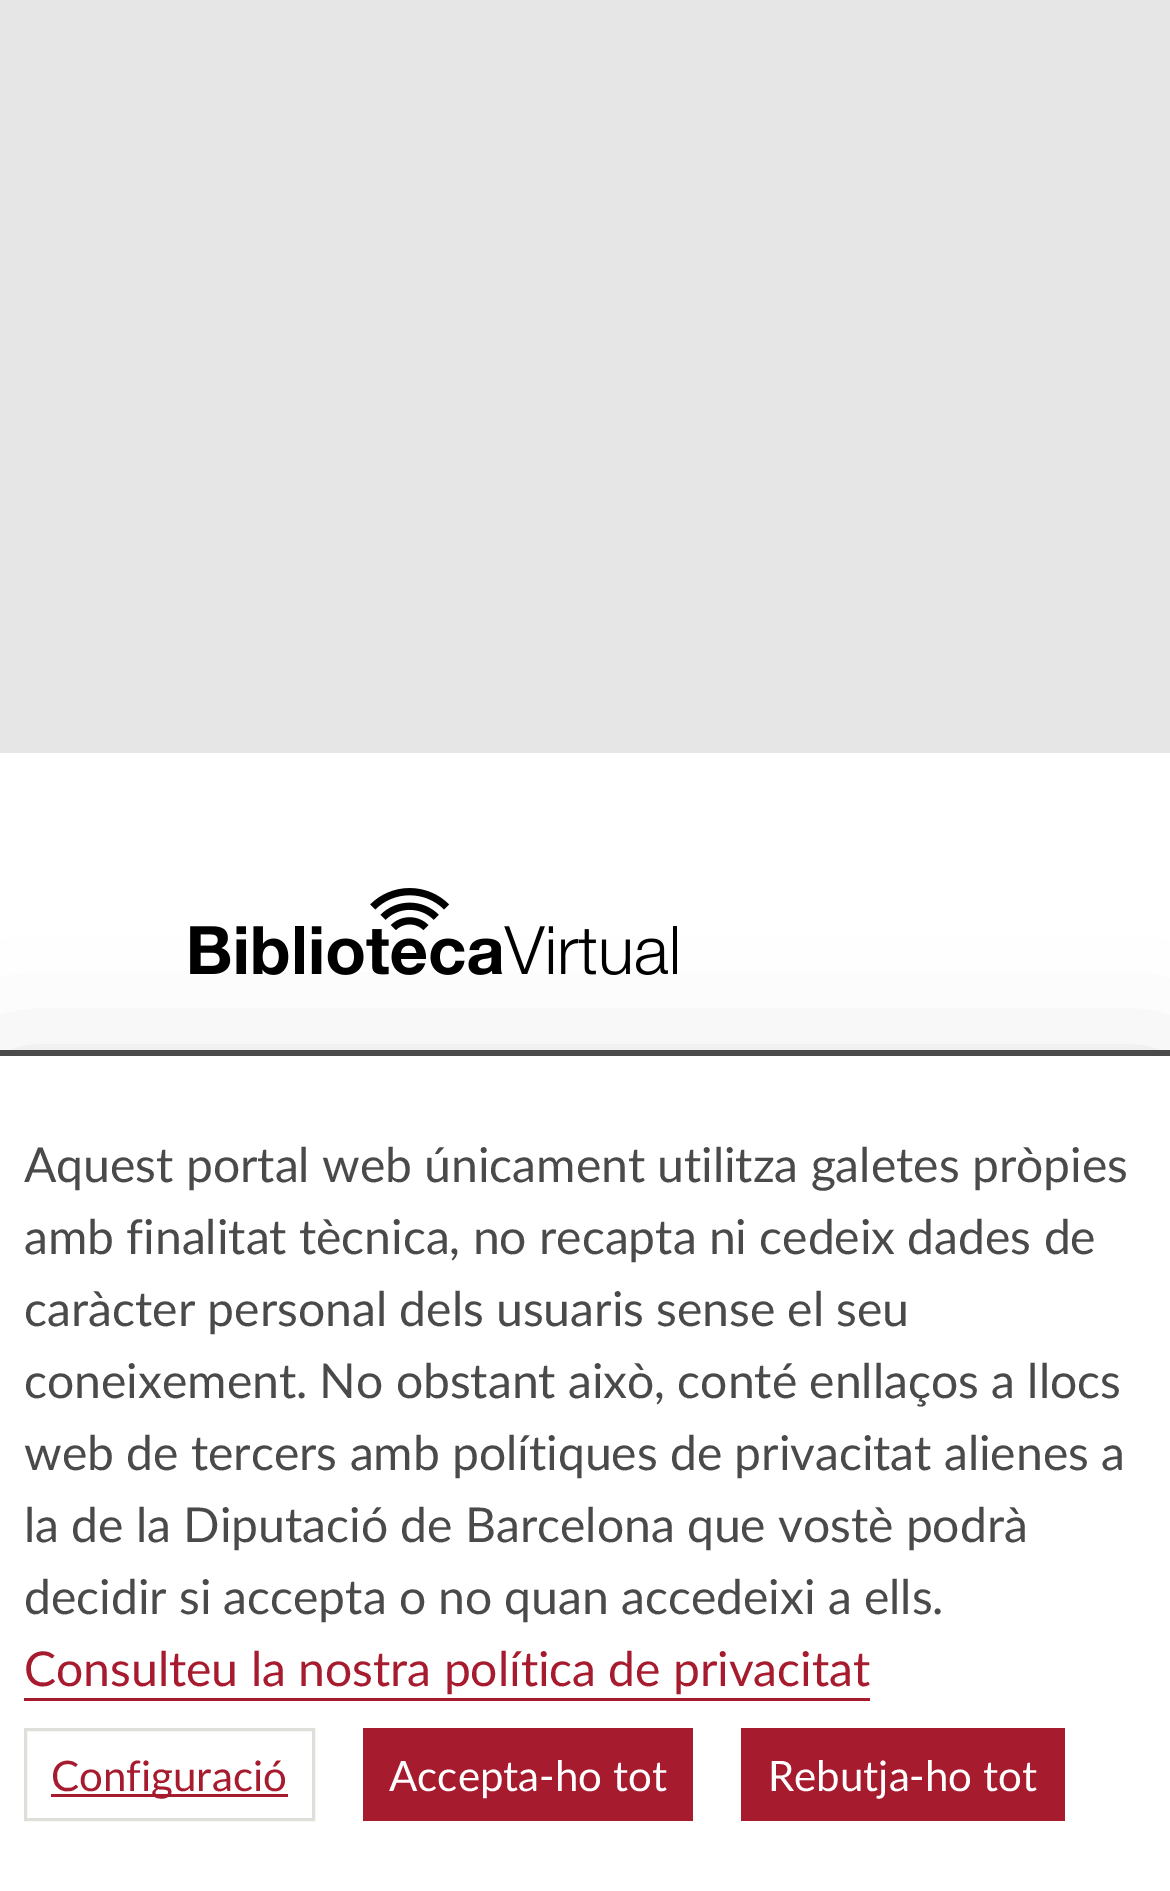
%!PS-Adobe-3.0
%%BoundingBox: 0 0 1170 1891
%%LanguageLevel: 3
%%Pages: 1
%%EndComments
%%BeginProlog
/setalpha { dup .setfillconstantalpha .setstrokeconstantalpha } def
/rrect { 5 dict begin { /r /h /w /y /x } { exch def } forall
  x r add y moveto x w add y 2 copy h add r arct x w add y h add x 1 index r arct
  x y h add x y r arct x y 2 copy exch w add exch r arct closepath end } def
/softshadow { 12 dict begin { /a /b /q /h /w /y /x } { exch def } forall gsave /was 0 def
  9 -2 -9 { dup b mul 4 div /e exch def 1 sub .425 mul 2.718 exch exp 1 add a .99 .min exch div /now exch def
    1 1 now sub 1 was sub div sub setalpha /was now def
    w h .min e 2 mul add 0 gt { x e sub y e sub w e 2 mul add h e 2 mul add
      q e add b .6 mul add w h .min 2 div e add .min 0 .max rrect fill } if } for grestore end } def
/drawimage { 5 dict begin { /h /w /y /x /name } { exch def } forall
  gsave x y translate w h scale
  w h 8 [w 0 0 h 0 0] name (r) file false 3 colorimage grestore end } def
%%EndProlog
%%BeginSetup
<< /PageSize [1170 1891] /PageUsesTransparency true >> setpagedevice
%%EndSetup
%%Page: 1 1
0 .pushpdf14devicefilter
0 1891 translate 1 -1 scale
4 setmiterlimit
1 setgray
0 0 1170 1891 rectfill
0.902 setgray
0 0 1170 753 rectfill
(images/1.raw) 190 888 487 87 drawimage
0 setgray
0 1098 1170 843 0 72 0.18 softshadow
1 setgray
0 1056 1170 835 rectfill
0.29 setgray
0 1050 1170 6 rectfill
0.655 0.106 0.18 setrgbcolor
24 1698 846 3 rectfill
0.875 0.875 0.855 setrgbcolor
3 setlinewidth
25.5 1729.5 288 90 rectstroke
0.655 0.106 0.18 setrgbcolor
51 1794 237 3 rectfill
363 1728 330 93 rectfill
741 1728 324 93 rectfill
/Lato-Regular [48 0 0 -48 0 0] selectfont
0.29 setgray
24 1182 moveto (Aquest portal web únicament utilitza galetes pròpies) show
24 1254 moveto (amb finalitat tècnica, no recapta ni cedeix dades de) show
24 1326 moveto (caràcter personal dels usuaris sense el seu) show
24 1398 moveto (coneixement. No obstant això, conté enllaços a llocs) show
24 1470 moveto (web de tercers amb polítiques de privacitat alienes a) show
24 1542 moveto (la de la Diputació de Barcelona que vostè podrà) show
24 1614 moveto (decidir si accepta o no quan accedeixi a ells.) show
0.655 0.106 0.18 setrgbcolor
24 1686 moveto (Consulteu la nostra política de privacitat) show
/Lato-Regular [42 0 0 -42 0 0] selectfont
51 1791 moveto (Configuració) show
1 setgray
389 1791 moveto (Accepta-ho tot) show
768 1791 moveto (Rebutja-ho tot) show
.poppdf14devicefilter showpage
%%EOF
